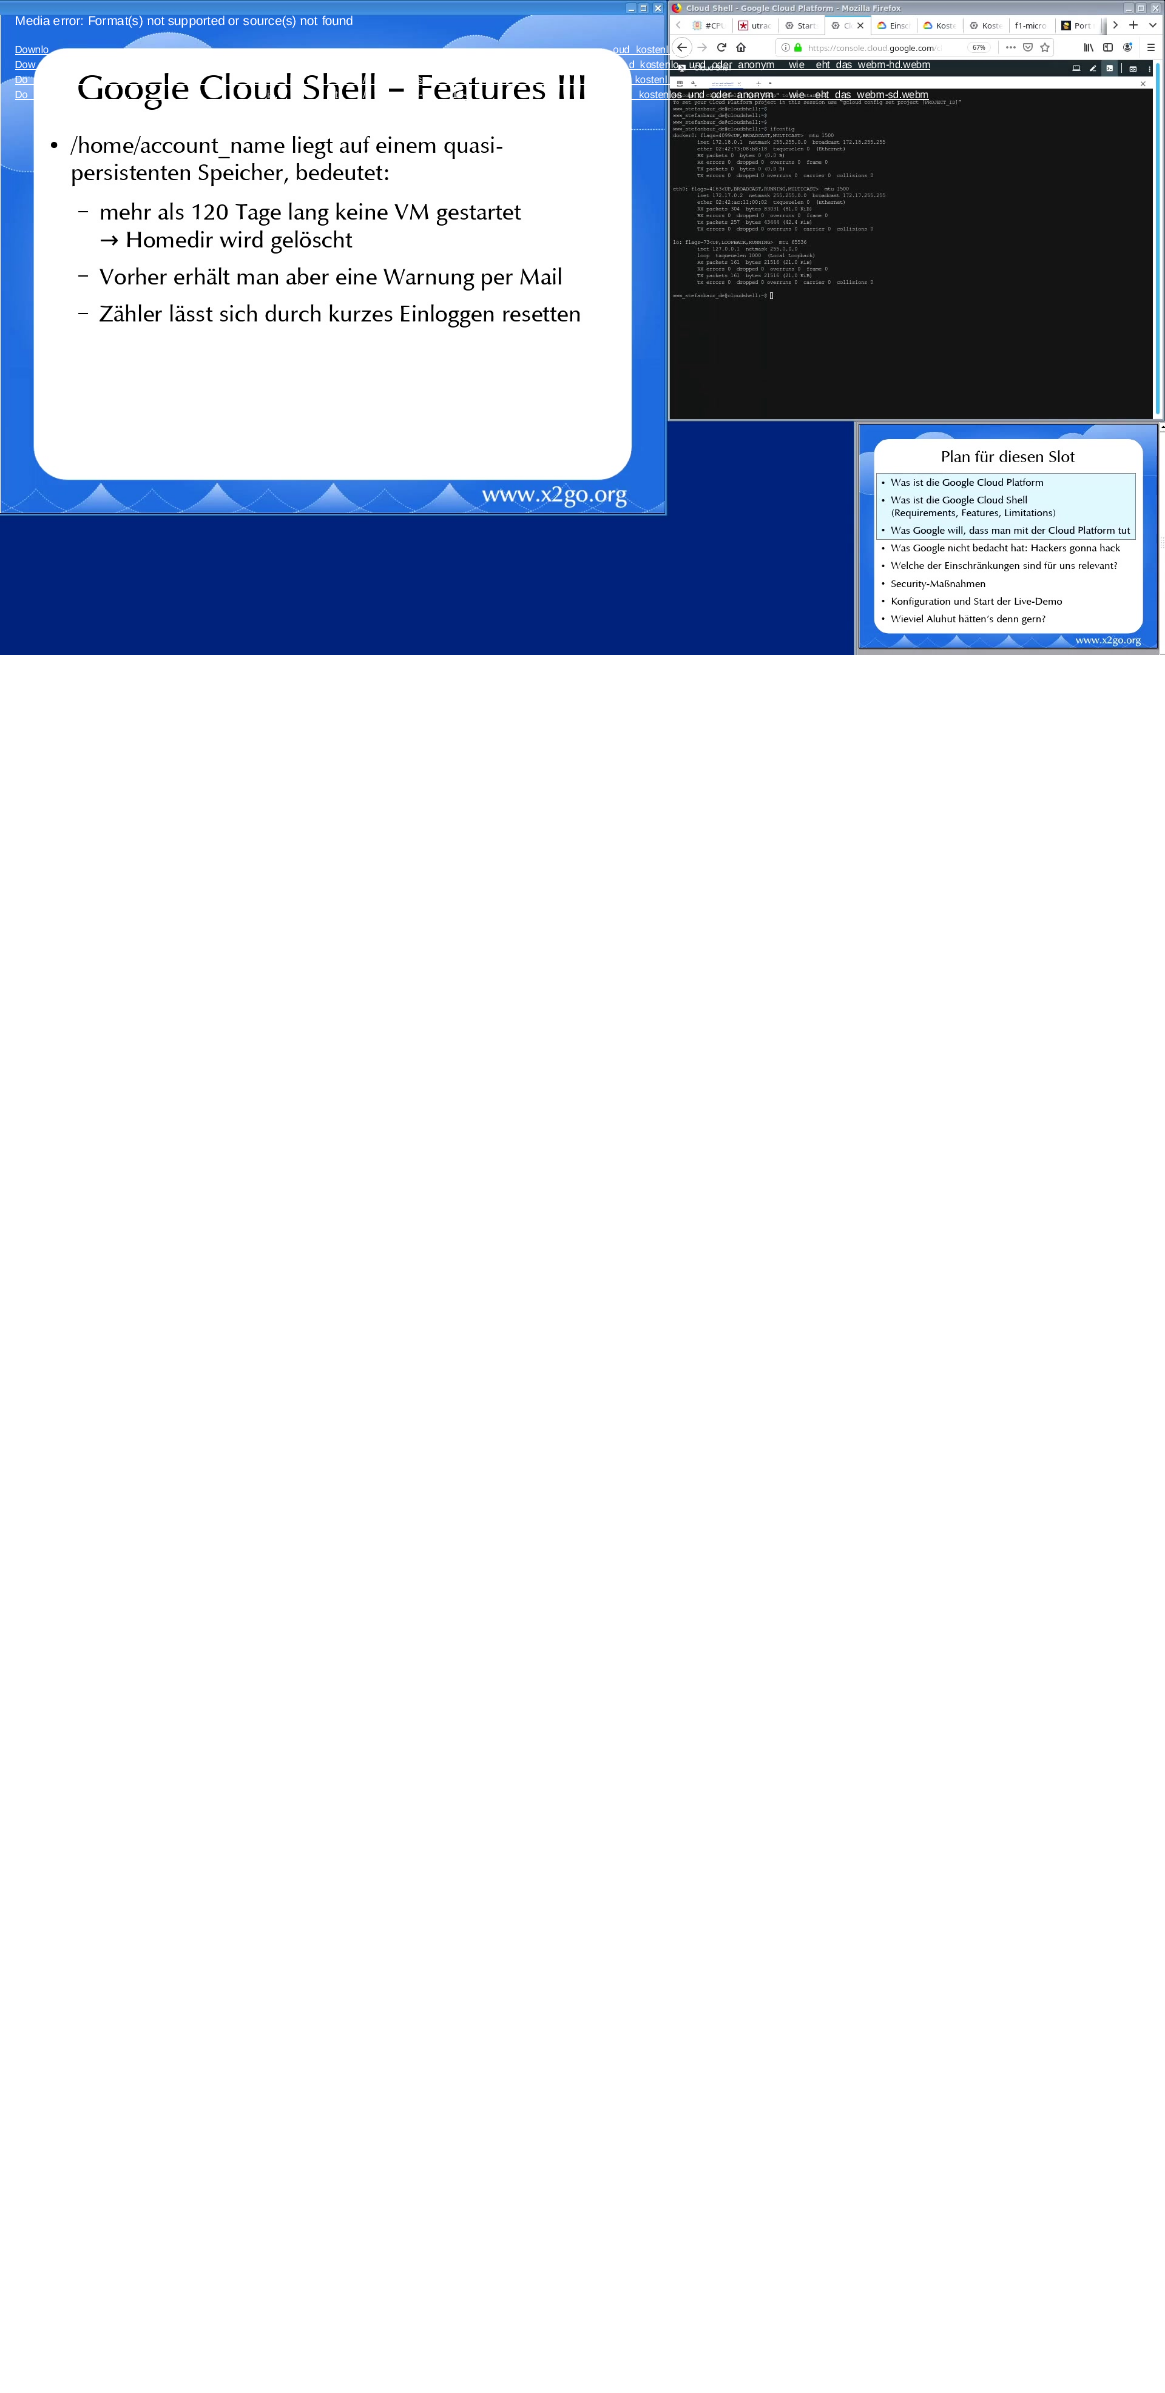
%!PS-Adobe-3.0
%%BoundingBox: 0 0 1165 2393
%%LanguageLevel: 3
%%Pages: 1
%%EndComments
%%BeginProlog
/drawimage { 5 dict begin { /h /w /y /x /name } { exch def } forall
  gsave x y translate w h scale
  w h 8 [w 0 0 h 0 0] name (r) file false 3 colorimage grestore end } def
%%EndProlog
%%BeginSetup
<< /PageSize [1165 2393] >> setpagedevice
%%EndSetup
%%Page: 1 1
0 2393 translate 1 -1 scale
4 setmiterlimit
1 setgray
0 0 1165 2393 rectfill
(images/1.raw) 0 0 1165 655 drawimage
15 54 762 1 rectfill
15 69 915 1 rectfill
15 84 757 1 rectfill
15 99 914 1 rectfill
/LiberationSans-Regular [12.8 0 0 -12.8 0 0] selectfont
15 25 moveto (Media error: Format\(s\) not supported or source\(s\) not found) show
/LiberationSans-Regular [10.25 0 0 -10.25 0 0] selectfont
15 53 moveto (Downlo) show
613 53 moveto (oud_kostenl) show
15 68 moveto (Dow) show
629 68 moveto (d_kostenlo) show
689 68 moveto (und_oder_anonym) show
789 68 moveto (wie) show
816 68 moveto (eht_das_webm-hd.webm) show
15 83 moveto (Do) show
363 83 moveto (/) show
417 83 moveto (s) show
635 83 moveto (kostenl) show
15 98 moveto (Do) show
267 98 moveto (ia.) show
335 98 moveto (t) show
363 98 moveto (/) show
419 98 moveto (-) show
452 98 moveto (19-) show
639 98 moveto (kostenlos_und_oder_anonym) show
789 98 moveto (wie) show
815 98 moveto (eht_das_webm-sd.webm) show
127 98 moveto (.) show
showpage
%%EOF
